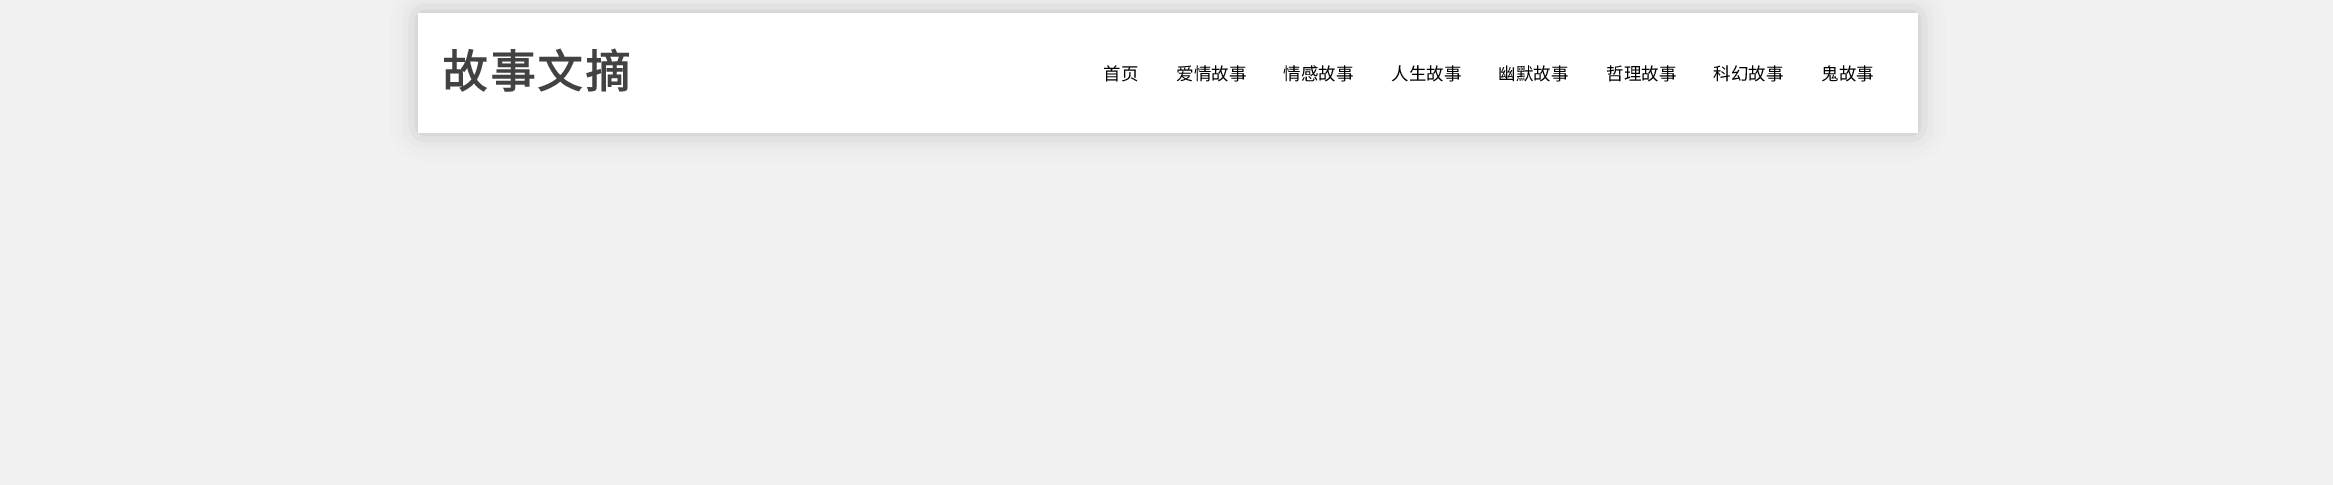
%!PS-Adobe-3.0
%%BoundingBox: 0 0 2333 485
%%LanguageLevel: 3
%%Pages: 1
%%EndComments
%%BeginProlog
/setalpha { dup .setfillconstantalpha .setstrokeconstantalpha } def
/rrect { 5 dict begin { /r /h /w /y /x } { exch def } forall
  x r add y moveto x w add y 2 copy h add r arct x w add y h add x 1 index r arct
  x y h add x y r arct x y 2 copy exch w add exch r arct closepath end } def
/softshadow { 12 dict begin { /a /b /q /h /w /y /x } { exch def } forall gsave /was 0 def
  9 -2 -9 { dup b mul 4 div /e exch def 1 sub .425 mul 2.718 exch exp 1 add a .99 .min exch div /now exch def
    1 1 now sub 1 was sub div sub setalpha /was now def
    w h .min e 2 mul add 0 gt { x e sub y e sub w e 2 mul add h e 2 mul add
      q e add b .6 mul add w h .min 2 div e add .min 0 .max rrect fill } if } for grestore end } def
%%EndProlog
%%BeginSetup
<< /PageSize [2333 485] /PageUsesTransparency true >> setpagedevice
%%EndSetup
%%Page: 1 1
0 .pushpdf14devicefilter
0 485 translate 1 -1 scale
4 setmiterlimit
0.945 setgray
0 0 2333 485 rectfill
0 setgray
418 13 1500 120 0 12.5 0.2 softshadow
1 setgray
418 13 1500 120 rectfill
/NotoSansCJKSC-Bold [45 0 0 -45 0 0] selectfont
0.259 setgray
442 88 moveto 2.5 0 (故事文摘) ashow
/NotoSansCJKSC-Regular [17.5 0 0 -17.5 0 0] selectfont
0 setgray
1103 80 moveto (首页) show
1176 80 moveto (爱情故事) show
1283 80 moveto (情感故事) show
1391 80 moveto (人生故事) show
1498 80 moveto (幽默故事) show
1606 80 moveto (哲理故事) show
1713 80 moveto (科幻故事) show
1821 80 moveto (鬼故事) show
.poppdf14devicefilter showpage
%%EOF
